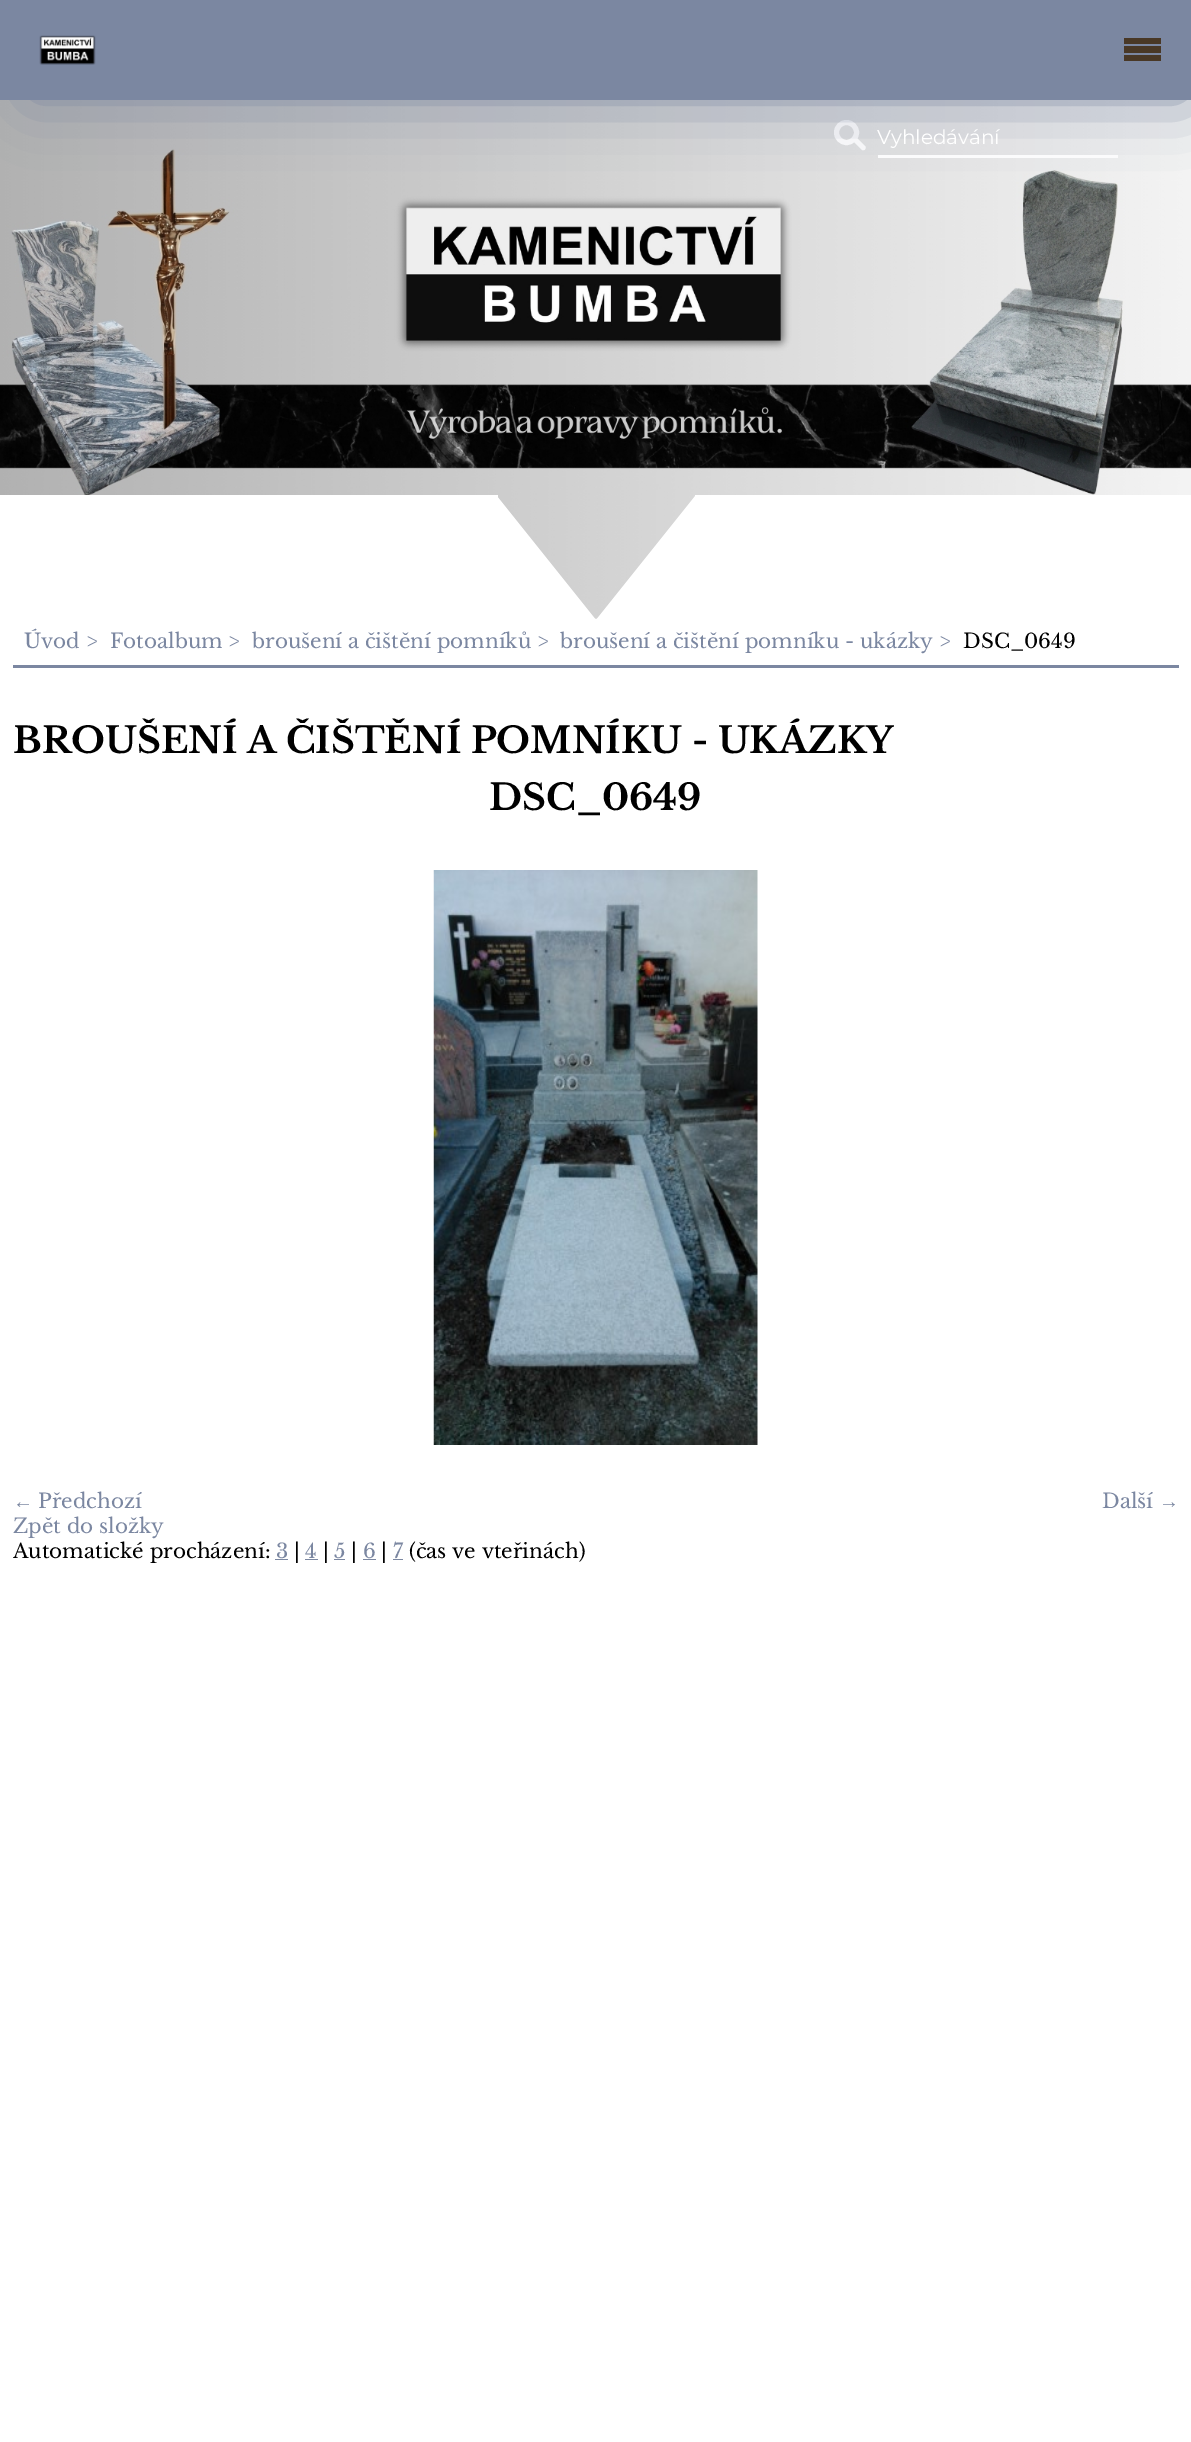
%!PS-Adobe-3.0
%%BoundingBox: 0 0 1191 2442
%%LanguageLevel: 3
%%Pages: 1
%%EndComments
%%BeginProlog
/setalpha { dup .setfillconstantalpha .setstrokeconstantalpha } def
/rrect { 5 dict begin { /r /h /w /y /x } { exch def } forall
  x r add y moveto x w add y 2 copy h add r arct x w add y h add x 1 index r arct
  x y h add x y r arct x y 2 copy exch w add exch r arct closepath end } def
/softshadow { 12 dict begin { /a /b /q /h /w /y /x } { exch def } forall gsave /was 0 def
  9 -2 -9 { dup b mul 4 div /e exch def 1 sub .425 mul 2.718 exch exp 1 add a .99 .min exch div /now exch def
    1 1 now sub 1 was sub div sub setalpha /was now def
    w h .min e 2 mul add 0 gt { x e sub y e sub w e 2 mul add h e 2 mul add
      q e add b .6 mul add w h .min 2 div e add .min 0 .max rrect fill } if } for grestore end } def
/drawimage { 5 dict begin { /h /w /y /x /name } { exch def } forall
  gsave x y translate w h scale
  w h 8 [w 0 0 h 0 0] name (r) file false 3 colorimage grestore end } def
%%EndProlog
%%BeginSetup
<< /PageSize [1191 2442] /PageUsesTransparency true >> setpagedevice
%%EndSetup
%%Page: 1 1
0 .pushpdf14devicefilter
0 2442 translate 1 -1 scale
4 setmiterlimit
1 setgray
0 0 1191 2442 rectfill
(images/2.raw) 0 100 1191 519 drawimage
5 setlinewidth
newpath 846.5 132.5 10 0 360 arc closepath stroke
newpath 851 139 moveto 854.5 135.5 lineto 865.5 146.5 lineto 866.5 149 863.5 151.5 861.5 149.5 curveto closepath fill
878 155 240 3 rectfill
0.482 0.529 0.631 setrgbcolor
28 28 1161 70 0 32.5 1 softshadow
0 0 1191 100 rectfill
(images/1.raw) 39 35 57 30 drawimage
0.286 0.22 0.149 setrgbcolor
1124 38 37 6 rectfill
1124 46 37 7 rectfill
1124 55 37 6 rectfill
1 setgray
0 495 498 124 rectfill
newpath 696 495 moveto 696 620 lineto 596 620 lineto closepath fill
newpath 496 620 moveto 496 495 lineto 596 620 lineto closepath fill
695 495 496 124 rectfill
0.482 0.529 0.631 setrgbcolor
13 665 1166 3 rectfill
(images/3.raw) 433 870 325 575 drawimage
275 1559 13 1 rectfill
305 1559 13 1 rectfill
334 1559 11 1 rectfill
363 1559 13 1 rectfill
393 1559 10 1 rectfill
/Montserrat-Thin [20 0 0 -20 0 0] selectfont
1 setgray
877 144 moveto (Vyhledávání) show
/LibreBaskerville-Regular [20 0 0 -20 0 0] selectfont
0.482 0.529 0.631 setrgbcolor
24 648 moveto (Úvod >) show
110 648 moveto (Fotoalbum >) show
252 648 moveto (broušení a čištění pomníků >) show
560 648 moveto (broušení a čištění pomníku - ukázky >) show
0 setgray
963 648 moveto (DSC_0649) show
/LibreBaskerville-Bold [36 0 0 -36 0 0] selectfont
13 753 moveto (BROUŠENÍ A ČIŠTĚNÍ POMNÍKU - UKÁZKY) show
489 810 moveto (DSC_0649) show
/LiberationSans-Regular [20 0 0 -20 0 0] selectfont
0.482 0.529 0.631 setrgbcolor
13 1508 moveto (←) show
/LibreBaskerville-Regular [20 0 0 -20 0 0] selectfont
38 1508 moveto (Předchozí) show
1102 1508 moveto (Další) show
/LiberationSans-Regular [20 0 0 -20 0 0] selectfont
1159 1508 moveto (→) show
/LibreBaskerville-Regular [20 0 0 -20 0 0] selectfont
13 1533 moveto (Zpět do složky) show
0 setgray
13 1558 moveto (Automatické procházení:) show
0.482 0.529 0.631 setrgbcolor
276 1558 moveto (3) show
0 setgray
294 1558 moveto (|) show
0.482 0.529 0.631 setrgbcolor
305 1558 moveto (4) show
0 setgray
323 1558 moveto (|) show
0.482 0.529 0.631 setrgbcolor
334 1558 moveto (5) show
0 setgray
351 1558 moveto (|) show
0.482 0.529 0.631 setrgbcolor
363 1558 moveto (6) show
0 setgray
381 1558 moveto (|) show
0.482 0.529 0.631 setrgbcolor
393 1558 moveto (7) show
0 setgray
409 1558 moveto (\(čas ve vteřinách\)) show
.poppdf14devicefilter showpage
%%EOF
